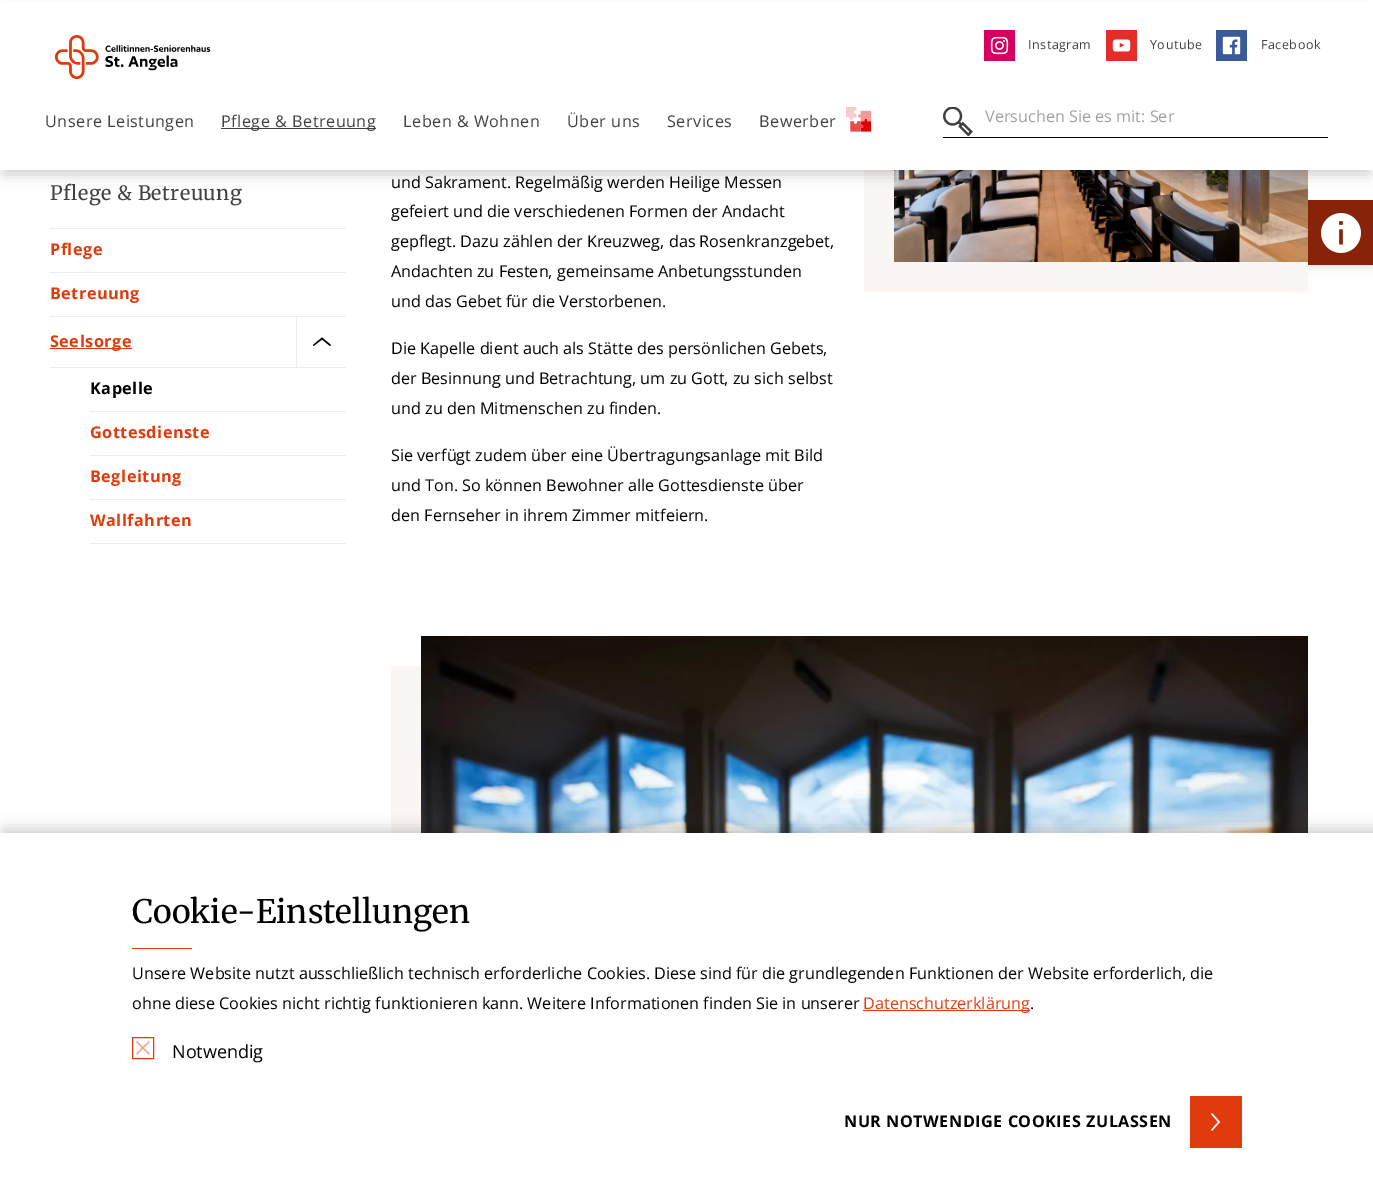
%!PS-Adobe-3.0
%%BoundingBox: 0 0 1373 1204
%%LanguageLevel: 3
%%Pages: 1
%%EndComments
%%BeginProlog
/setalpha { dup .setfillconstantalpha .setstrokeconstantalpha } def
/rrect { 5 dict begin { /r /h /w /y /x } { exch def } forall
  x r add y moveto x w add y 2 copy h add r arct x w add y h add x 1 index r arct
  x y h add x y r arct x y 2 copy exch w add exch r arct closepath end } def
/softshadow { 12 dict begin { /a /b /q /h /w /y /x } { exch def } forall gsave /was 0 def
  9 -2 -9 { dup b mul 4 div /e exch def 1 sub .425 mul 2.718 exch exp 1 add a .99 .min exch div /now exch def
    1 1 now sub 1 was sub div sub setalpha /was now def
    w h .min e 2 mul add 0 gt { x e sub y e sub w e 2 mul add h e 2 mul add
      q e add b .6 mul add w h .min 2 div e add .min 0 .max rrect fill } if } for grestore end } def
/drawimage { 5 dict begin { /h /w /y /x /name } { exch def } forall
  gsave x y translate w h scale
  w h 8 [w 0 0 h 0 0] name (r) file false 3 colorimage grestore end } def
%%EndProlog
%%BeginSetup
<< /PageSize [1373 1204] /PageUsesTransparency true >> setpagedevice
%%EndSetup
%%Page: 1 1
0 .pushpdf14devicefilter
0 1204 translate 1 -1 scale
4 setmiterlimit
1 setgray
0 0 1373 1204 rectfill
0.98 0.965 0.953 setrgbcolor
864 170 444 122 rectfill
(images/7.raw) 894 170 414 92 drawimage
0 setgray
4 12 1365 162 0 7 0.2 softshadow
1 setgray
0 1 1373 169 rectfill
(images/1.raw) 54 35 157 44 drawimage
(images/2.raw) 984 30 31 31 drawimage
(images/3.raw) 1106 30 31 31 drawimage
(images/4.raw) 1216 30 31 31 drawimage
0.251 setgray
221 128 155 1 rectfill
(images/5.raw) 846 107 25 25 drawimage
0 setgray
943 137 385 1 rectfill
(images/6.raw) 943 107 30 29 drawimage
0.925 setgray
50 228 296 1 rectfill
50 272 296 1 rectfill
50 316 296 1 rectfill
50 367 296 1 rectfill
0.878 0.227 0.051 setrgbcolor
50 348 82 1 rectfill
0.925 setgray
296 317 1 50 rectfill
0 setgray
newpath 331 345 moveto 330 346 lineto 322 339.5 lineto 313.5 346 lineto 313 345 lineto 322 337.5 lineto closepath fill
0.925 setgray
90 411 256 1 rectfill
90 455 256 1 rectfill
90 499 256 1 rectfill
90 543 256 1 rectfill
0.98 0.965 0.953 setrgbcolor
391 666 30 167 rectfill
(images/8.raw) 421 636 887 197 drawimage
gsave
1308 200 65 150 rectclip
0 setgray
1307 201 65 65 0 5 0.15 softshadow
grestore
0.525 0.137 0.031 setrgbcolor
1308 200 65 65 rectfill
(images/9.raw) 1321 213 40 40 drawimage
0 setgray
4 829 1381 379 0 7 0.2 softshadow
1 setgray
0 833 1373 371 rectfill
0.878 0.227 0.051 setrgbcolor
132 948 60 1 rectfill
863 1010 167 1 rectfill
132.5 1037.5 21 21 rectstroke
(images/10.raw) 136 1041 14 14 drawimage
1190 1096 52 52 rectfill
1 setgray
newpath 1212 1131 moveto 1211 1130 lineto 1218 1122 lineto 1211 1114 lineto 1212 1113 lineto 1220 1122 lineto closepath fill
/OpenSans-Regular [12.5 0 0 -12.5 0 0] selectfont
0.251 setgray
1028 49 moveto 0.5 0 (Instagram) ashow
1150 49 moveto 0.5 0 (Youtube) ashow
1261 49 moveto 0.5 0 (Facebook) ashow
/OpenSans-Regular [16.2 0 0 -16.2 0 0] selectfont
45 127 moveto 0.5 0 (Unsere Leistungen) ashow
221 127 moveto 0.5 0 (Pflege & Betreuung) ashow
403 127 moveto 0.5 0 (Leben & Wohnen) ashow
567 127 moveto 0.5 0 (Über uns) ashow
667 127 moveto 0.5 0 (Services) ashow
759 127 moveto 0.5 0 (Bewerber) ashow
0.627 setgray
985 122 moveto (Versuchen Sie es mit: Ser) show
/Merriweather-Regular [19.75 0 0 -19.75 0 0] selectfont
0.251 setgray
50 200 moveto 0.5 0 (Pflege & Betreuung) ashow
/OpenSans-Bold [16.2 0 0 -16.2 0 0] selectfont
0.878 0.227 0.051 setrgbcolor
50 255 moveto 0.5 0 (Pflege) ashow
50 299 moveto 0.5 0 (Betreuung) ashow
50 347 moveto 0.5 0 (Seelsorge) ashow
0 setgray
90 394 moveto 0.5 0 (Kapelle) ashow
0.878 0.227 0.051 setrgbcolor
90 438 moveto 0.5 0 (Gottesdienste) ashow
90 482 moveto 0.5 0 (Begleitung) ashow
90 526 moveto 0.5 0 (Wallfahrten) ashow
/OpenSans-Regular [16.2 0 0 -16.2 0 0] selectfont
0 setgray
391 188 moveto (und Sakrament. Regelmäßig werden Heilige Messen) show
391 217 moveto (gefeiert und die verschiedenen Formen der Andacht) show
391 247 moveto (gepflegt. Dazu zählen der Kreuzweg, das Rosenkranzgebet,) show
391 277 moveto (Andachten zu Festen, gemeinsame Anbetungsstunden) show
391 307 moveto (und das Gebet für die Verstorbenen.) show
391 354 moveto (Die Kapelle dient auch als Stätte des persönlichen Gebets,) show
391 384 moveto (der Besinnung und Betrachtung, um zu Gott, zu sich selbst) show
391 414 moveto (und zu den Mitmenschen zu finden.) show
391 461 moveto (Sie verfügt zudem über eine Übertragungsanlage mit Bild) show
391 491 moveto (und Ton. So können Bewohner alle Gottesdienste über) show
391 521 moveto (den Fernseher in ihrem Zimmer mitfeiern.) show
/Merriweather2-Regular [32.4 0 0 -32.4 0 0] selectfont
132 923 moveto (Cookie-Einstellungen) show
/OpenSans-Regular [16.2 0 0 -16.2 0 0] selectfont
132 979 moveto (Unsere Website nutzt ausschließlich technisch erforderliche Cookies. Diese sind für die grundlegenden Funktionen der Website erforderlich, die) show
132 1009 moveto (ohne diese Cookies nicht richtig funktionieren kann. Weitere Informationen finden Sie in unserer) show
0.878 0.227 0.051 setrgbcolor
863 1009 moveto (Datenschutzerklärung) show
0 setgray
1030 1009 moveto (.) show
/OpenSans-Regular [18 0 0 -18 0 0] selectfont
172 1058 moveto (Notwendig) show
/OpenSans-Bold [16.2 0 0 -16.2 0 0] selectfont
844 1127 moveto 0.5 0 (NUR NOTWENDIGE COOKIES ZULASSEN) ashow
.poppdf14devicefilter showpage
%%EOF
